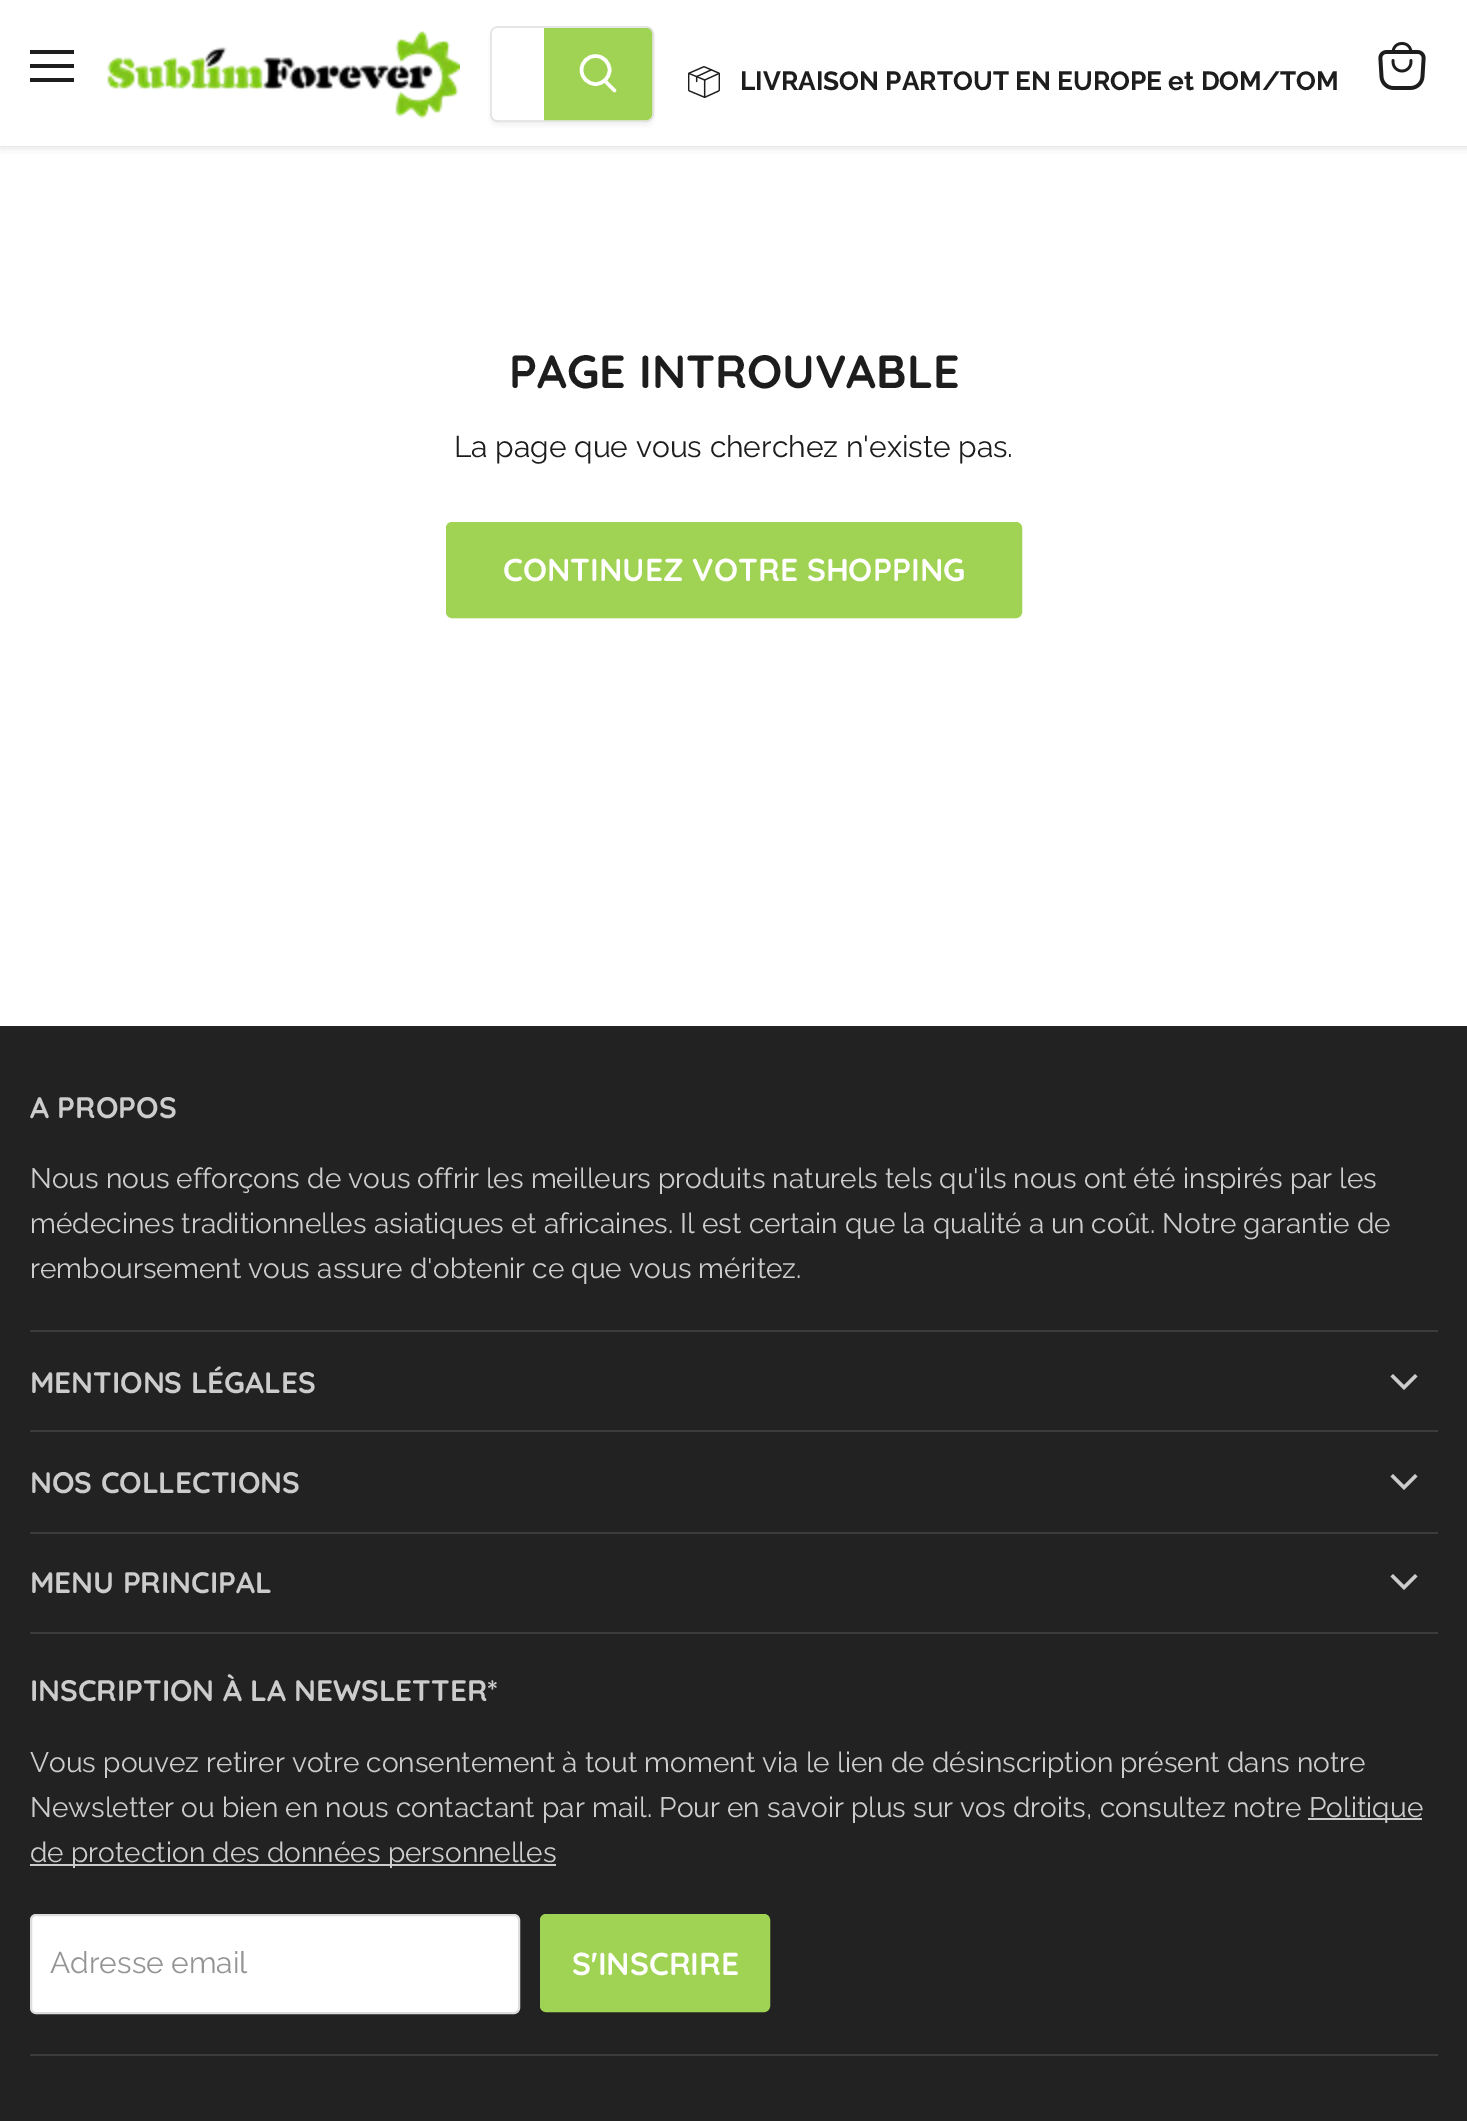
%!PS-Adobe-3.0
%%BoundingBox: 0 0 1467 2121
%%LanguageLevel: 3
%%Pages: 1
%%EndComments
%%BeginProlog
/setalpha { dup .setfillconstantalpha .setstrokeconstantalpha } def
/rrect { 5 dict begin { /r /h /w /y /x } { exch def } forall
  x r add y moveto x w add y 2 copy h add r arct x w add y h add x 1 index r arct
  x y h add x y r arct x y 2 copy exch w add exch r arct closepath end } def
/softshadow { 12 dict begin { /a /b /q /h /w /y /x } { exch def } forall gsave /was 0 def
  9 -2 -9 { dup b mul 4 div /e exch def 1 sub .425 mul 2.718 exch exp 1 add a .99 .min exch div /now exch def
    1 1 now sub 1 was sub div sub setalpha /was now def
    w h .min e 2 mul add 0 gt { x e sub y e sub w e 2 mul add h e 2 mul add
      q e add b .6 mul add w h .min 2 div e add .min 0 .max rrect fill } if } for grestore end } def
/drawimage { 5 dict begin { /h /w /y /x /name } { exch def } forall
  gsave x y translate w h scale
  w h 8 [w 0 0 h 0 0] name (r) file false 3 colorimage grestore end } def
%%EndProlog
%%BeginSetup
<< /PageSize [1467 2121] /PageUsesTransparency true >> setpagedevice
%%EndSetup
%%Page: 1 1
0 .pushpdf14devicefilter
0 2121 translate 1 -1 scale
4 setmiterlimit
1 setgray
0 0 1467 2121 rectfill
gsave
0 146 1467 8 rectclip
0.502 setgray
0 2 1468 146 0 4 0.25 softshadow
grestore
0.114 setgray
30 50 44 4 rectfill
30 64 44 4 rectfill
30 78 44 4 rectfill
(images/1.raw) 107 31 353 88 drawimage
gsave
newpath 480 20 moveto 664 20 lineto 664 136 lineto 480 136 lineto closepath 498 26 moveto 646 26 lineto 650.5 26 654 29.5 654 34 curveto 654 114 lineto 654 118.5 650.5 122 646 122 curveto 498 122 lineto 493.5 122 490 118.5 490 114 curveto 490 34 lineto 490 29.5 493.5 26 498 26 curveto closepath eoclip newpath
0.502 setgray
490 30 164 96 8 3 0.11 softshadow
grestore
0.2 setalpha
0.502 setgray
2 setlinewidth
491 27 162 94 7 rrect stroke
1 setalpha
1 setgray
newpath 498 28 moveto 544 28 lineto 544 120 lineto 498 120 lineto 494.5 120 492 117.5 492 114 curveto 492 34 lineto 492 30.5 494.5 28 498 28 curveto closepath fill
0.627 0.827 0.325 setrgbcolor
newpath 545 29 moveto 646 29 lineto 649 29 651 31 651 34 curveto 651 114 lineto 651 117 649 119 646 119 curveto 545 119 lineto closepath gsave fill grestore
stroke
1 setgray
3.5 setlinewidth
1 setlinecap
newpath 614.5 90.5 moveto 605 81 lineto stroke
0 setlinecap
newpath 595.5 70 14 0 360 arc closepath stroke
(images/2.raw) 688 66 32 32 drawimage
(images/3.raw) 1378 42 48 48 drawimage
0.627 0.827 0.325 setrgbcolor
447 523 574 94 5 rrect gsave fill grestore
2 setlinewidth
stroke
0.133 setgray
0 1026 1467 1095 rectfill
0.235 setgray
30 1330 1408 2 rectfill
30 1430 1408 2 rectfill
0.8 setgray
3.5 setlinewidth
2 setlinecap
newpath 1404 1387.5 moveto 1415 1376.5 lineto 1404 1387.5 moveto 1393 1376.5 lineto stroke
0.235 setgray
30 1532 1408 2 rectfill
0.8 setgray
newpath 1404 1487.5 moveto 1415 1476.5 lineto 1404 1487.5 moveto 1393 1476.5 lineto stroke
0.235 setgray
30 1632 1408 2 rectfill
0.8 setgray
newpath 1404 1587.5 moveto 1415 1576.5 lineto 1404 1587.5 moveto 1393 1576.5 lineto stroke
0.235 setgray
30 2054 1408 2 rectfill
0.8 setgray
1308 1818 114 2 rectfill
30 1864 526 2 rectfill
1 setgray
31 1915 488 98 5 rrect gsave fill grestore
0.867 setgray
2 setlinewidth
0 setlinecap
stroke
0.627 0.827 0.325 setrgbcolor
541 1915 228 96 5 rrect gsave fill grestore
stroke
/Raleway-Bold [26.25 0 0 -26.25 0 0] selectfont
0.114 setgray
740 90 moveto (LIVRAISON PARTOUT EN EUROPE et DOM/TOM) show
/Quicksand-Bold [46.5 0 0 -46.5 0 0] selectfont
509 388 moveto (PAGE INTROUVABLE) show
/Raleway-Regular [30 0 0 -30 0 0] selectfont
454 457 moveto (La page que vous cherchez n'existe pas.) show
/Quicksand-Bold [31.75 0 0 -31.75 0 0] selectfont
1 setgray
503 581 moveto (CONTINUEZ VOTRE SHOPPING) show
/Quicksand-Bold [29.75 0 0 -29.75 0 0] selectfont
0.8 setgray
30 1118 moveto (A PROPOS) show
/Raleway-Regular [28.1 0 0 -28.1 0 0] selectfont
30 1188 moveto (Nous nous efforçons de vous offrir les meilleurs produits naturels tels qu'ils nous ont été inspirés par les) show
30 1233 moveto (médecines traditionnelles asiatiques et africaines. Il est certain que la qualité a un coût. Notre garantie de) show
30 1278 moveto (remboursement vous assure d'obtenir ce que vous méritez.) show
/Quicksand-Bold [29.75 0 0 -29.75 0 0] selectfont
30 1393 moveto (MENTIONS LÉGALES) show
30 1493 moveto (NOS COLLECTIONS) show
30 1593 moveto (MENU PRINCIPAL) show
30 1701 moveto (INSCRIPTION À LA NEWSLETTER*) show
/Raleway-Regular [28.1 0 0 -28.1 0 0] selectfont
30 1772 moveto (Vous pouvez retirer votre consentement à tout moment via le lien de désinscription présent dans notre) show
30 1817 moveto (Newsletter ou bien en nous contactant par mail. Pour en savoir plus sur vos droits, consultez notre) show
1309 1817 moveto (Politique) show
30 1862 moveto (de protection des données personnelles) show
/Raleway-Regular [30 0 0 -30 0 0] selectfont
0.58 setgray
50 1973 moveto (Adresse email) show
/Quicksand-Bold [31.75 0 0 -31.75 0 0] selectfont
1 setgray
572 1975 moveto (S'INSCRIRE) show
.poppdf14devicefilter showpage
%%EOF
